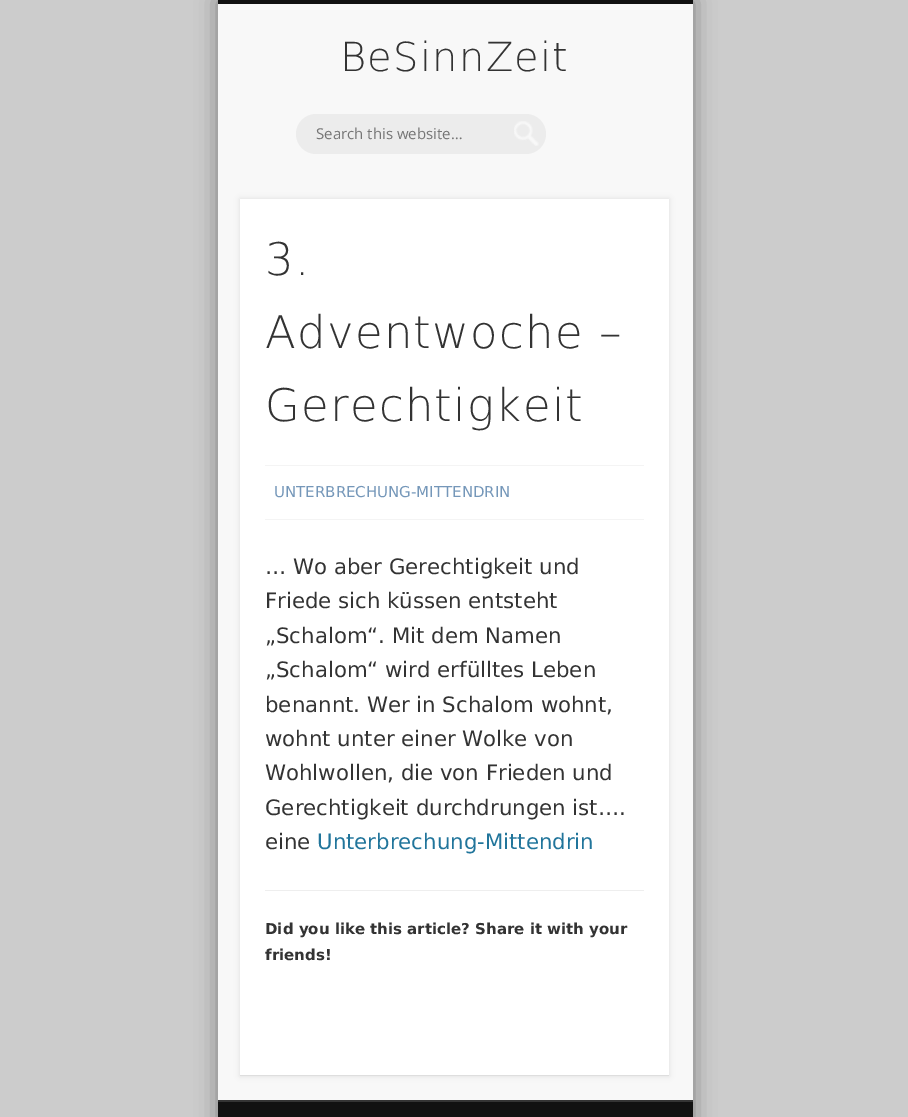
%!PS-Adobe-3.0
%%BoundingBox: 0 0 908 1117
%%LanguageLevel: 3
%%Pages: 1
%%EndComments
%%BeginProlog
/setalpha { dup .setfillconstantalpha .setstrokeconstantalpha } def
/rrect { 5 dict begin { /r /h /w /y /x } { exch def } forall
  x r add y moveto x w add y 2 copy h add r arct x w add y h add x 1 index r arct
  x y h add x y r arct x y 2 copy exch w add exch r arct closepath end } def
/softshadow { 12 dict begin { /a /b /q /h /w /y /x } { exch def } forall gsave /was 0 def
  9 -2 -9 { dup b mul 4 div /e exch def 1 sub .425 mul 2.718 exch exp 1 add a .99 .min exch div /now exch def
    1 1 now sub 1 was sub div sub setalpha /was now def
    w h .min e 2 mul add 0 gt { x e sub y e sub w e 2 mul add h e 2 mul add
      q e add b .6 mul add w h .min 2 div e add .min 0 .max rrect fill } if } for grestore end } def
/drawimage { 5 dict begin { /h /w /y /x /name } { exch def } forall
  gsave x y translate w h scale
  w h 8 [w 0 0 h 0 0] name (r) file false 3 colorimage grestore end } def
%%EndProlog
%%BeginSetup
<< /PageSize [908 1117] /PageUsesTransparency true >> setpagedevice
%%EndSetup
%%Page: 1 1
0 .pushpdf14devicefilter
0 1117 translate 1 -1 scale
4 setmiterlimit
0.8 setgray
0 0 908 1117 rectfill
0 setgray
218 0 475 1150 0 11 0.4 softshadow
0.973 setgray
218 4 475 1096 rectfill
0.067 setgray
218 0 475 4 rectfill
0.925 setgray
296 114 250 40 20 rrect fill
(images/1.raw) 514 121 25 25 drawimage
0 setgray
240 199 429 877 0 3 0.1 softshadow
1 setgray
240 199 429 876 rectfill
0.871 setgray
240 1075 429 1 rectfill
0.957 setgray
265 465 379 1 rectfill
265 519 379 1 rectfill
0.933 setgray
265 890 379 1 rectfill
0.204 setgray
218 1100 475 2 rectfill
0.067 setgray
218 1102 475 15 rectfill
/DejaVuSans-ExtraLight [40 0 0 -40 0 0] selectfont
0.2 setgray
340 71 moveto 1.25 0 (BeSinnZeit) ashow
/OpenSans-Regular [15 0 0 -15 0 0] selectfont
0.459 setgray
316 139 moveto (Search this website…) show
/DejaVuSans-ExtraLight [45 0 0 -45 0 0] selectfont
0.2 setgray
265 275 moveto 1.25 0 (3.) ashow
265 348 moveto 1.25 0 (Adventwoche –) ashow
265 421 moveto 1.25 0 (Gerechtigkeit) ashow
/DejaVuSans-Regular [15 0 0 -15 0 0] selectfont
0.459 0.592 0.725 setrgbcolor
274 497 moveto (UNTERBRECHUNG-MITTENDRIN) show
/DejaVuSans-Regular [21.25 0 0 -21.25 0 0] selectfont
0.2 setgray
265 574 moveto (… Wo aber Gerechtigkeit und) show
265 608 moveto (Friede sich küssen entsteht) show
265 643 moveto („Schalom“. Mit dem Namen) show
265 677 moveto („Schalom“ wird erfülltes Leben) show
265 712 moveto (benannt. Wer in Schalom wohnt,) show
265 746 moveto (wohnt unter einer Wolke von) show
265 780 moveto (Wohlwollen, die von Frieden und) show
265 815 moveto (Gerechtigkeit durchdrungen ist….) show
265 849 moveto (eine) show
0.129 0.459 0.608 setrgbcolor
317 849 moveto (Unterbrechung-Mittendrin) show
/DejaVuSans-Bold [15 0 0 -15 0 0] selectfont
0.2 setgray
265 934 moveto (Did you like this article? Share it with your) show
265 960 moveto (friends!) show
.poppdf14devicefilter showpage
%%EOF
